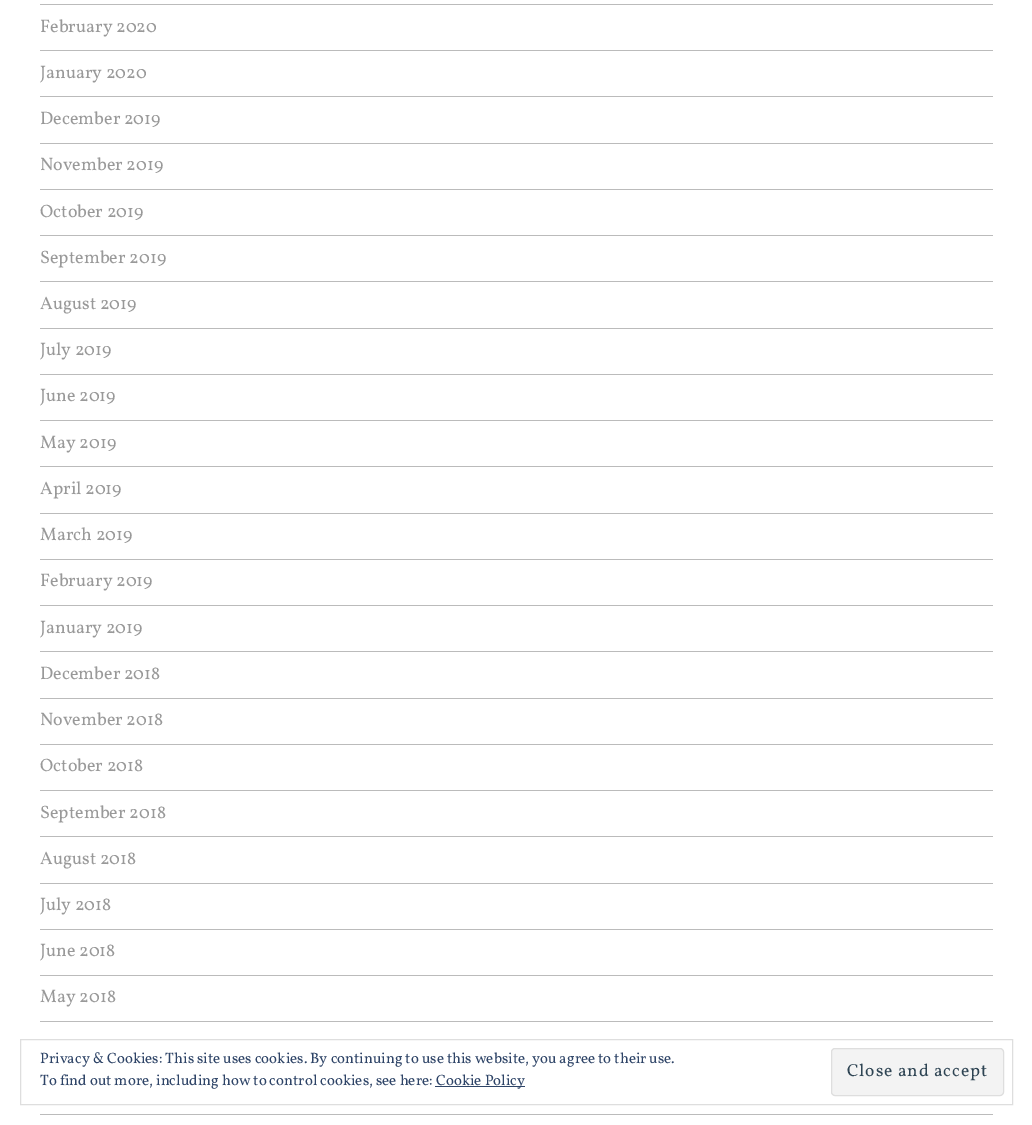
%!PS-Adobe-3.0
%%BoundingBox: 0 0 1032 1125
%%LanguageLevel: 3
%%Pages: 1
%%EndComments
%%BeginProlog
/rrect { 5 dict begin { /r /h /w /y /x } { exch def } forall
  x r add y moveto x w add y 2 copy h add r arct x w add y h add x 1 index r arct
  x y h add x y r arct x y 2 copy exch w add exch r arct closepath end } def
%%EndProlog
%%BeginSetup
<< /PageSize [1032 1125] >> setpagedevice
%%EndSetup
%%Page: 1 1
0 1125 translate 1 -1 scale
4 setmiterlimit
1 setgray
0 0 1032 1125 rectfill
0.733 setgray
40 4 953 1 rectfill
40 50 953 1 rectfill
40 96 953 1 rectfill
40 143 953 1 rectfill
40 189 953 1 rectfill
40 235 953 1 rectfill
40 281 953 1 rectfill
40 328 953 1 rectfill
40 374 953 1 rectfill
40 420 953 1 rectfill
40 466 953 1 rectfill
40 513 953 1 rectfill
40 559 953 1 rectfill
40 605 953 1 rectfill
40 651 953 1 rectfill
40 698 953 1 rectfill
40 744 953 1 rectfill
40 790 953 1 rectfill
40 836 953 1 rectfill
40 883 953 1 rectfill
40 929 953 1 rectfill
40 975 953 1 rectfill
40 1021 953 1 rectfill
40 1114 953 1 rectfill
0.871 setgray
20.5 1039.5 992 65 rectstroke
0.18 0.267 0.404 setrgbcolor
435 1086 90 1 rectfill
0.953 setgray
831.5 1048.5 172 47 3.5 rrect gsave fill grestore
0.871 setgray
stroke
/Vollkorn-Regular [18 0 0 -18 0 0] selectfont
0.6 setgray
40 32 moveto (February 2020) show
40 78 moveto (January 2020) show
40 124 moveto (December 2019) show
40 170 moveto (November 2019) show
40 217 moveto (October 2019) show
40 263 moveto (September 2019) show
40 309 moveto (August 2019) show
40 355 moveto (July 2019) show
40 401 moveto (June 2019) show
40 448 moveto (May 2019) show
40 494 moveto (April 2019) show
40 540 moveto (March 2019) show
40 586 moveto (February 2019) show
40 633 moveto (January 2019) show
40 679 moveto (December 2018) show
40 725 moveto (November 2018) show
40 771 moveto (October 2018) show
40 818 moveto (September 2018) show
40 864 moveto (August 2018) show
40 910 moveto (July 2018) show
40 956 moveto (June 2018) show
40 1002 moveto (May 2018) show
/Vollkorn-Regular [15 0 0 -15 0 0] selectfont
0.18 0.267 0.404 setrgbcolor
40 1063 moveto (Privacy & Cookies: This site uses cookies. By continuing to use this website, you agree to their use.) show
40 1085 moveto (To find out more, including how to control cookies, see here:) show
436 1085 moveto (Cookie Policy) show
/Vollkorn-Regular [17.5 0 0 -17.5 0 0] selectfont
0.18 0.267 0.325 setrgbcolor
847 1076 moveto 0.9 0 (Close and accept) ashow
showpage
%%EOF
